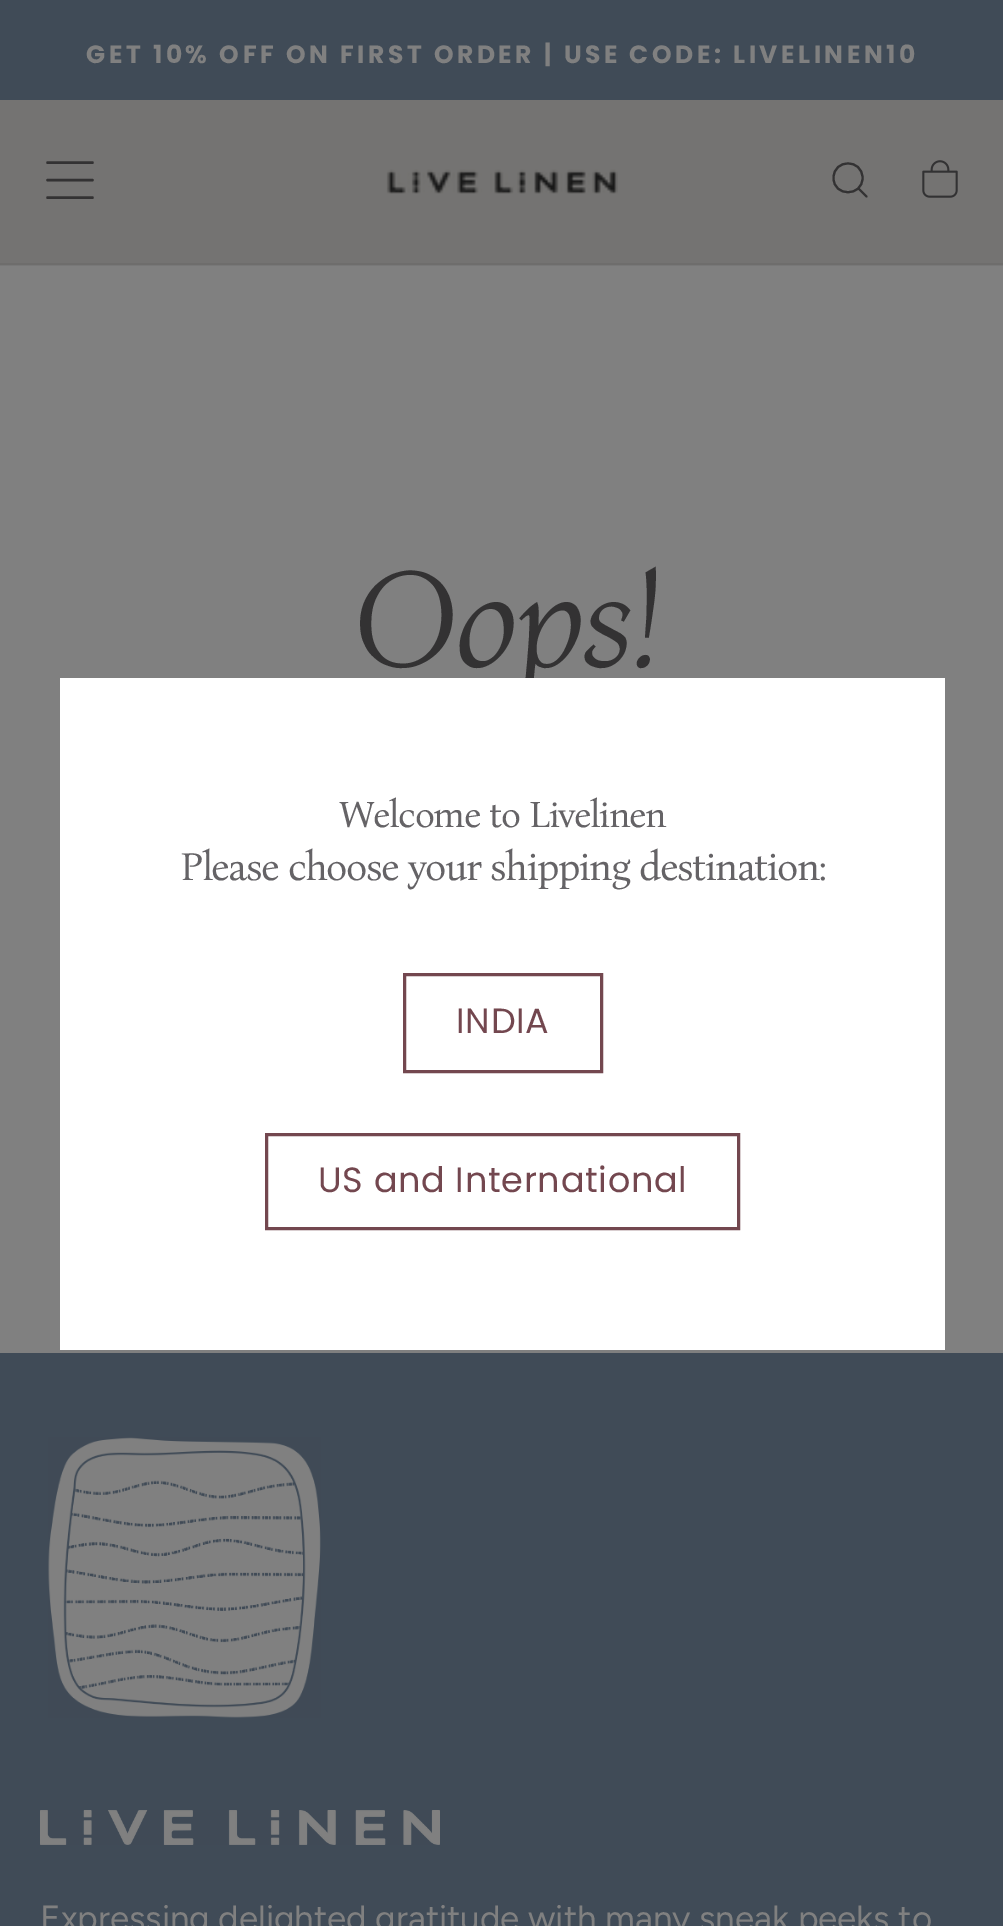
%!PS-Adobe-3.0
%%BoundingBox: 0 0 1003 1926
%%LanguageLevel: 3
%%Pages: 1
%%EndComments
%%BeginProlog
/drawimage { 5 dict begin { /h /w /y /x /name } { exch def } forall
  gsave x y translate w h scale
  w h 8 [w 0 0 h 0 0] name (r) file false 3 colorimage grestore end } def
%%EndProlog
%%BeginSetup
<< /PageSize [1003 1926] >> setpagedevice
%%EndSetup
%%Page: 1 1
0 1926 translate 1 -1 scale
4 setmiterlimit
0.502 setgray
0 0 1003 1926 rectfill
0.471 setgray
0 265 1003 1 rectfill
0.251 0.294 0.341 setrgbcolor
0 0 1003 100 rectfill
0.455 0.451 0.447 setrgbcolor
0 100 1003 163 rectfill
0.431 0.427 0.424 setrgbcolor
0 263 1003 2 rectfill
0.2 0.196 0.2 setrgbcolor
2.5 setlinewidth
1 setlinecap
newpath 47.5 180 moveto 92.5 180 lineto 47.5 162.5 moveto 92.5 162.5 lineto 47.5 197.5 moveto 92.5 197.5 lineto stroke
(images/1.raw) 386 169 232 25 drawimage
2.1 setlinewidth
newpath 866.5 196.5 moveto 858.5 188.5 lineto 862.5 178 moveto 862.5 197 833.5 197 833.5 178 curveto 833.5 158.5 862.5 158.5 862.5 178 curveto closepath stroke
(images/2.raw) 922 160 36 38 drawimage
0.251 0.294 0.341 setrgbcolor
0 1353 1003 573 rectfill
(images/3.raw) 48 1437 273 281 drawimage
(images/4.raw) 40 1810 400 35 drawimage
/Poppins-Bold [25 0 0 -25 0 0] selectfont
0.502 setgray
86 63 moveto 3.5 0 (GET 10% OFF ON FIRST ORDER | USE CODE: LIVELINEN10) ashow
/BonaNova-Italic [141 0 0 -141 0 0] selectfont
0.2 0.196 0.2 setrgbcolor
354 666 moveto -4.75 0 (Oops!) ashow
1 setgray
60 678 885 672 rectfill
/BonaNova-Regular [37.5 0 0 -37.5 0 0] selectfont
0.396 0.388 0.4 setrgbcolor
339 827 moveto -1.5 0 (Welcome to Livelinen) ashow
/BonaNova-Regular [40 0 0 -40 0 0] selectfont
180 880 moveto -1.6 0 (Please choose your shipping destination:) ashow
0.451 0.278 0.31 setrgbcolor
3 setlinewidth
0 setlinecap
404.5 974.5 197 97 rectstroke
/Poppins-Regular [35 0 0 -35 0 0] selectfont
456 1033 moveto 0.7 0 (INDIA) ashow
266.5 1134.5 472 94 rectstroke
318 1192 moveto 0.7 0 (US and International) ashow
/Figtree-Regular [35 0 0 -35 0 0] selectfont
0.502 setgray
40 1930 moveto (Expressing delighted gratitude with many sneak peeks to) show
showpage
%%EOF
